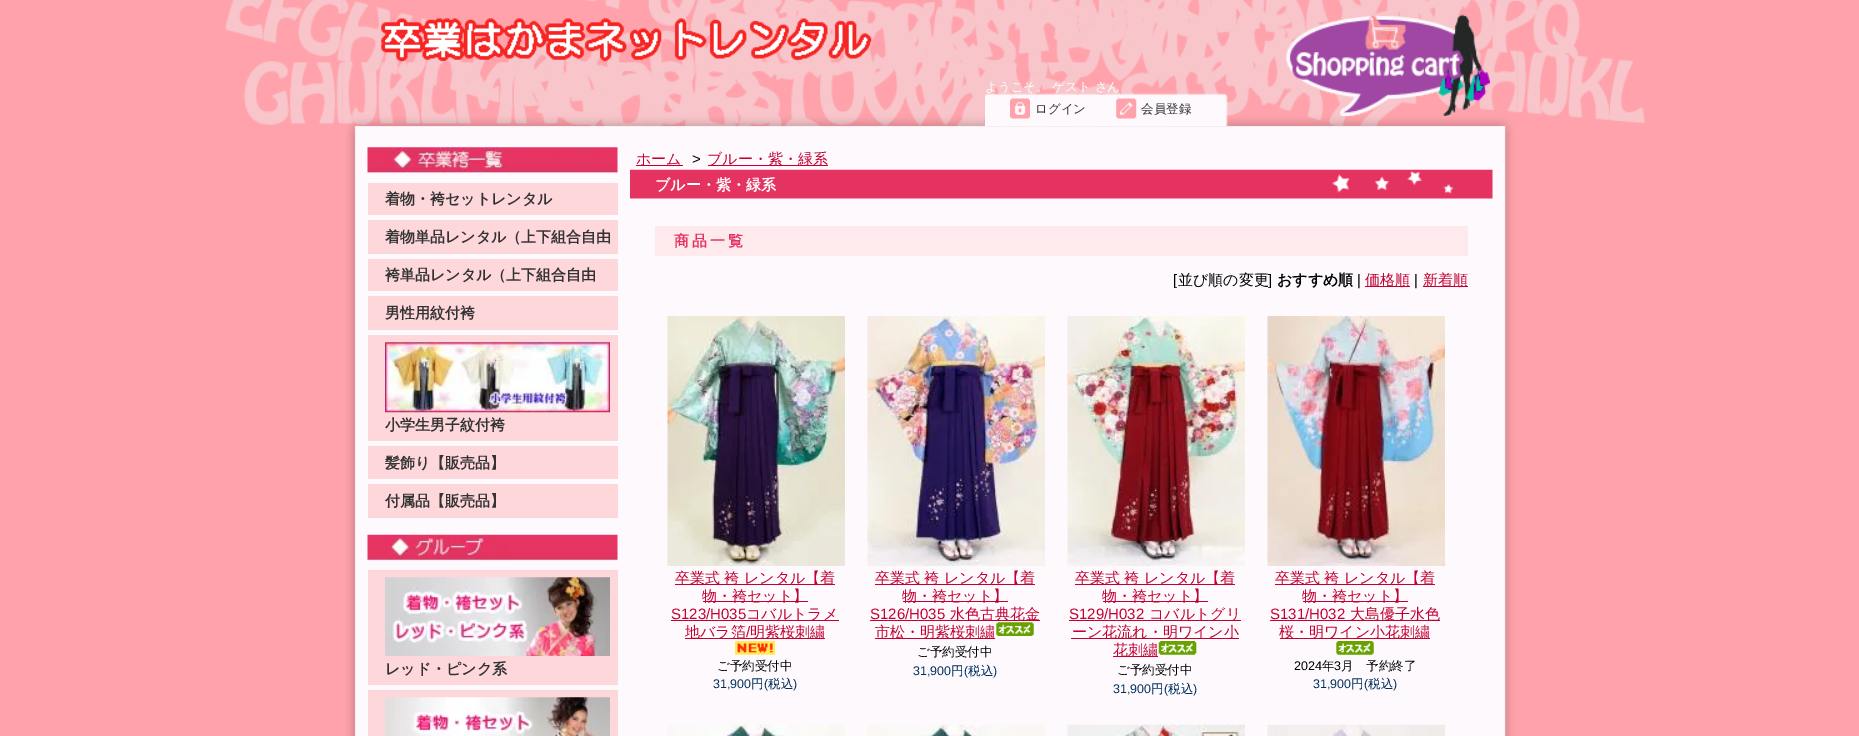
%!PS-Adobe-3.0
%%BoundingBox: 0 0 1859 736
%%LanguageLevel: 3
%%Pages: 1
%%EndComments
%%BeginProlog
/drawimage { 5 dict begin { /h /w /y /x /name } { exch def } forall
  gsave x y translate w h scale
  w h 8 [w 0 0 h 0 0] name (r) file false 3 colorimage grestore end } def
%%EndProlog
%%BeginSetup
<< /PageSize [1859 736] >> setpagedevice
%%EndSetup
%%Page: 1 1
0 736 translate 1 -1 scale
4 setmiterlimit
1 0.635 0.671 setrgbcolor
0 0 1859 736 rectfill
(images/1.raw) 225 0 1420 135 drawimage
(images/2.raw) 342 0 1176 736 drawimage
(images/3.raw) 342 0 1176 132 drawimage
(images/4.raw) 381 18 491 44 drawimage
(images/5.raw) 1286 14 204 102 drawimage
(images/6.raw) 985 93 243 33 drawimage
(images/7.raw) 1010 98 20 21 drawimage
(images/8.raw) 1116 98 21 21 drawimage
(images/9.raw) 367 147 251 27 drawimage
0.996 0.843 0.859 setrgbcolor
368 183 250 32 rectfill
368 220 250 34 rectfill
368 259 250 32 rectfill
368 296 250 34 rectfill
368 335 250 106 rectfill
(images/10.raw) 385 342 225 71 drawimage
368 446 250 33 rectfill
368 484 250 34 rectfill
(images/11.raw) 367 534 251 28 drawimage
368 570 250 115 rectfill
(images/12.raw) 385 577 225 79 drawimage
368 690 250 46 rectfill
(images/13.raw) 385 697 225 39 drawimage
0.765 0 0.188 setrgbcolor
636 165 47 1 rectfill
708 165 120 1 rectfill
(images/14.raw) 630 169 863 30 drawimage
0.996 0.918 0.925 setrgbcolor
655 226 813 30 rectfill
0.765 0 0.188 setrgbcolor
1365 286 45 1 rectfill
1423 286 45 1 rectfill
(images/15.raw) 667 316 178 250 drawimage
675 584 160 1 rectfill
703 601 105 1 rectfill
671 620 168 1 rectfill
685 638 140 1 rectfill
(images/16.raw) 735 641 40 14 drawimage
(images/17.raw) 867 316 178 250 drawimage
875 584 160 1 rectfill
903 601 105 1 rectfill
870 620 170 1 rectfill
875 638 120 1 rectfill
(images/18.raw) 996 622 38 14 drawimage
(images/19.raw) 1067 316 178 250 drawimage
1075 584 160 1 rectfill
1103 601 105 1 rectfill
1069 620 172 1 rectfill
1071 638 168 1 rectfill
1113 656 45 1 rectfill
(images/20.raw) 1158 641 39 14 drawimage
(images/21.raw) 1267 316 178 250 drawimage
1275 584 160 1 rectfill
1303 601 105 1 rectfill
1270 620 170 1 rectfill
1280 638 150 1 rectfill
(images/22.raw) 1336 641 38 14 drawimage
(images/23.raw) 667 724 178 12 drawimage
(images/24.raw) 867 724 178 12 drawimage
(images/25.raw) 1067 724 178 12 drawimage
(images/26.raw) 1267 724 178 12 drawimage
/WenQuanYiZenHei-Medium [12.5 0 0 -12.5 0 0] selectfont
1 setgray
985 91 moveto (ようこそ。 ゲスト さん) show
0.2 setgray
1035 113 moveto (ログイン) show
1141 113 moveto (会員登録) show
/WenQuanYiZenHei-Bold [15 0 0 -15 0 0] selectfont
385 204 moveto (着物・袴セットレンタル) show
385 242 moveto (着物単品レンタル（上下組合自由) show
385 280 moveto (袴単品レンタル（上下組合自由) show
385 318 moveto (男性用紋付袴) show
385 430 moveto (小学生男子紋付袴) show
385 468 moveto (髪飾り【販売品】) show
385 506 moveto (付属品【販売品】) show
385 674 moveto (レッド・ピンク系) show
/WenQuanYiZenHei-Medium [15 0 0 -15 0 0] selectfont
0.765 0 0.188 setrgbcolor
636 164 moveto (ホーム) show
/LiberationSans-Regular [15 0 0 -15 0 0] selectfont
0 setgray
692 164 moveto (>) show
/WenQuanYiZenHei-Medium [15 0 0 -15 0 0] selectfont
0.765 0 0.188 setrgbcolor
707 164 moveto (ブルー・紫・緑系) show
/WenQuanYiZenHei-Bold [15 0 0 -15 0 0] selectfont
1 setgray
655 190 moveto (ブルー・紫・緑系) show
0.898 0.2 0.38 setrgbcolor
674 246 moveto 3 0 (商品一覧) ashow
/LiberationSans-Regular [15 0 0 -15 0 0] selectfont
0 setgray
1173 285 moveto ([) show
/WenQuanYiZenHei-Medium [15 0 0 -15 0 0] selectfont
1178 285 moveto (並び順の変更) show
/LiberationSans-Regular [15 0 0 -15 0 0] selectfont
1268 285 moveto (]) show
/WenQuanYiZenHei-Bold [15 0 0 -15 0 0] selectfont
1277 285 moveto (おすすめ順) show
/LiberationSans-Regular [15 0 0 -15 0 0] selectfont
1357 285 moveto (|) show
/WenQuanYiZenHei-Medium [15 0 0 -15 0 0] selectfont
0.765 0 0.188 setrgbcolor
1365 285 moveto (価格順) show
/LiberationSans-Regular [15 0 0 -15 0 0] selectfont
0 setgray
1414 285 moveto (|) show
/WenQuanYiZenHei-Medium [15 0 0 -15 0 0] selectfont
0.765 0 0.188 setrgbcolor
1423 285 moveto (新着順) show
675 583 moveto (卒業式 袴 レンタル【着) show
702 601 moveto (物・袴セット】) show
/LiberationSans-Regular [15 0 0 -15 0 0] selectfont
671 619 moveto (S123/H035) show
/WenQuanYiZenHei-Medium [15 0 0 -15 0 0] selectfont
746 619 moveto (コバルトラメ) show
685 637 moveto (地バラ箔) show
/LiberationSans-Regular [15 0 0 -15 0 0] selectfont
746 637 moveto (/) show
/WenQuanYiZenHei-Medium [15 0 0 -15 0 0] selectfont
750 637 moveto (明紫桜刺繍) show
/WenQuanYiZenHei-Medium [12.5 0 0 -12.5 0 0] selectfont
0 setgray
717 670 moveto (ご予約受付中) show
/LiberationSans-Regular [12.5 0 0 -12.5 0 0] selectfont
0 0.192 0.369 setrgbcolor
713 688 moveto (31,900) show
/WenQuanYiZenHei-Medium [12.5 0 0 -12.5 0 0] selectfont
751 688 moveto (円) show
/LiberationSans-Regular [12.5 0 0 -12.5 0 0] selectfont
764 688 moveto (\() show
/WenQuanYiZenHei-Medium [12.5 0 0 -12.5 0 0] selectfont
768 688 moveto (税込) show
/LiberationSans-Regular [12.5 0 0 -12.5 0 0] selectfont
793 688 moveto (\)) show
/WenQuanYiZenHei-Medium [15 0 0 -15 0 0] selectfont
0.765 0 0.188 setrgbcolor
875 583 moveto (卒業式 袴 レンタル【着) show
902 601 moveto (物・袴セット】) show
/LiberationSans-Regular [15 0 0 -15 0 0] selectfont
870 619 moveto (S126/H035) show
/WenQuanYiZenHei-Medium [15 0 0 -15 0 0] selectfont
950 619 moveto (水色古典花金) show
875 637 moveto (市松・明紫桜刺繍) show
/WenQuanYiZenHei-Medium [12.5 0 0 -12.5 0 0] selectfont
0 setgray
917 656 moveto (ご予約受付中) show
/LiberationSans-Regular [12.5 0 0 -12.5 0 0] selectfont
0 0.192 0.369 setrgbcolor
913 675 moveto (31,900) show
/WenQuanYiZenHei-Medium [12.5 0 0 -12.5 0 0] selectfont
951 675 moveto (円) show
/LiberationSans-Regular [12.5 0 0 -12.5 0 0] selectfont
964 675 moveto (\() show
/WenQuanYiZenHei-Medium [12.5 0 0 -12.5 0 0] selectfont
968 675 moveto (税込) show
/LiberationSans-Regular [12.5 0 0 -12.5 0 0] selectfont
993 675 moveto (\)) show
/WenQuanYiZenHei-Medium [15 0 0 -15 0 0] selectfont
0.765 0 0.188 setrgbcolor
1075 583 moveto (卒業式 袴 レンタル【着) show
1102 601 moveto (物・袴セット】) show
/LiberationSans-Regular [15 0 0 -15 0 0] selectfont
1069 619 moveto (S129/H032) show
/WenQuanYiZenHei-Medium [15 0 0 -15 0 0] selectfont
1149 619 moveto (コバルトグリ) show
1072 637 moveto (ーン花流れ・明ワイン小) show
1113 655 moveto (花刺繍) show
/WenQuanYiZenHei-Medium [12.5 0 0 -12.5 0 0] selectfont
0 setgray
1117 674 moveto (ご予約受付中) show
/LiberationSans-Regular [12.5 0 0 -12.5 0 0] selectfont
0 0.192 0.369 setrgbcolor
1113 693 moveto (31,900) show
/WenQuanYiZenHei-Medium [12.5 0 0 -12.5 0 0] selectfont
1151 693 moveto (円) show
/LiberationSans-Regular [12.5 0 0 -12.5 0 0] selectfont
1164 693 moveto (\() show
/WenQuanYiZenHei-Medium [12.5 0 0 -12.5 0 0] selectfont
1168 693 moveto (税込) show
/LiberationSans-Regular [12.5 0 0 -12.5 0 0] selectfont
1193 693 moveto (\)) show
/WenQuanYiZenHei-Medium [15 0 0 -15 0 0] selectfont
0.765 0 0.188 setrgbcolor
1275 583 moveto (卒業式 袴 レンタル【着) show
1302 601 moveto (物・袴セット】) show
/LiberationSans-Regular [15 0 0 -15 0 0] selectfont
1270 619 moveto (S131/H032) show
/WenQuanYiZenHei-Medium [15 0 0 -15 0 0] selectfont
1350 619 moveto (大島優子水色) show
1279 637 moveto (桜・明ワイン小花刺繍) show
/LiberationSans-Regular [12.5 0 0 -12.5 0 0] selectfont
0 setgray
1294 670 moveto (2024) show
/WenQuanYiZenHei-Medium [12.5 0 0 -12.5 0 0] selectfont
1322 670 moveto (年) show
/LiberationSans-Regular [12.5 0 0 -12.5 0 0] selectfont
1334 670 moveto (3) show
/WenQuanYiZenHei-Medium [12.5 0 0 -12.5 0 0] selectfont
1341 670 moveto (月　予約終了) show
/LiberationSans-Regular [12.5 0 0 -12.5 0 0] selectfont
0 0.192 0.369 setrgbcolor
1313 688 moveto (31,900) show
/WenQuanYiZenHei-Medium [12.5 0 0 -12.5 0 0] selectfont
1351 688 moveto (円) show
/LiberationSans-Regular [12.5 0 0 -12.5 0 0] selectfont
1364 688 moveto (\() show
/WenQuanYiZenHei-Medium [12.5 0 0 -12.5 0 0] selectfont
1368 688 moveto (税込) show
/LiberationSans-Regular [12.5 0 0 -12.5 0 0] selectfont
1393 688 moveto (\)) show
showpage
%%EOF
